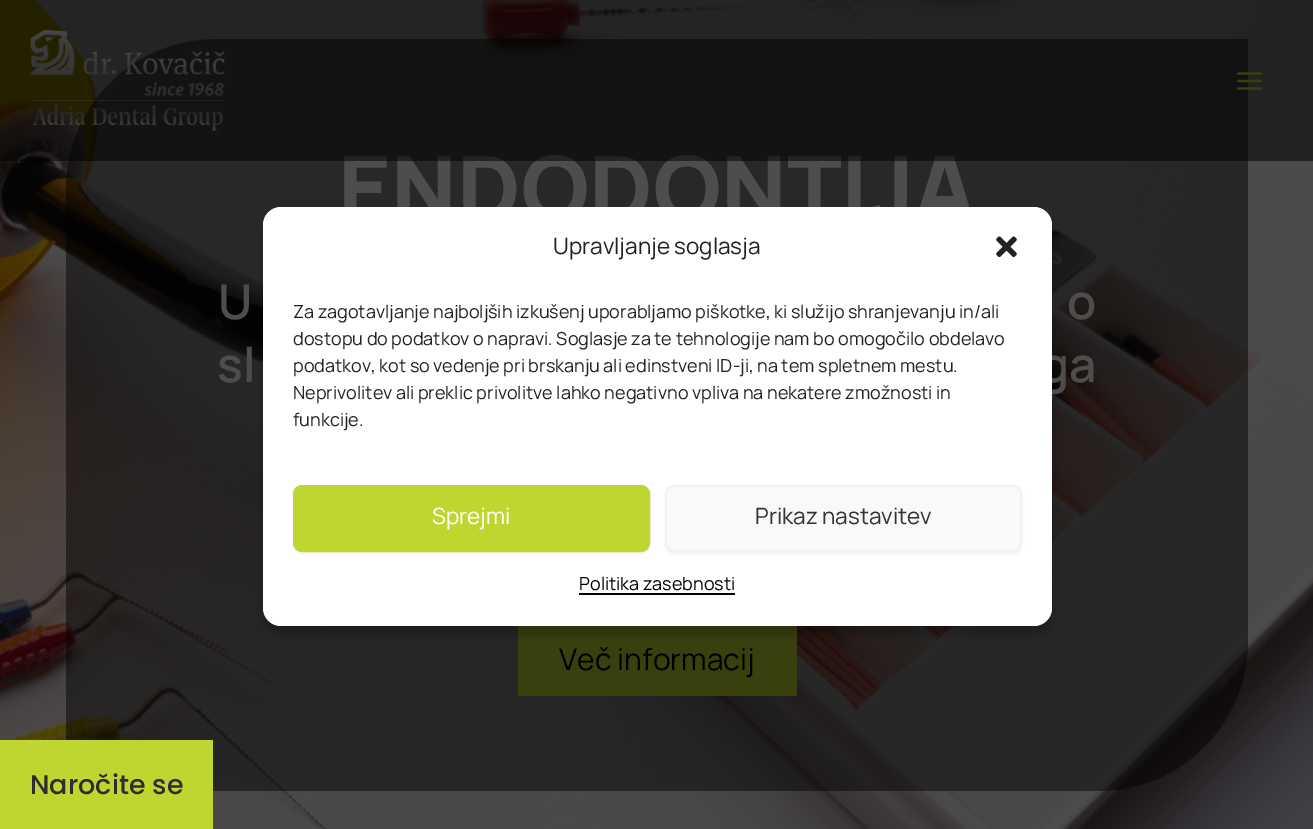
%!PS-Adobe-3.0
%%BoundingBox: 0 0 1313 829
%%LanguageLevel: 3
%%Pages: 1
%%EndComments
%%BeginProlog
/setalpha { dup .setfillconstantalpha .setstrokeconstantalpha } def
/rrect { 5 dict begin { /r /h /w /y /x } { exch def } forall
  x r add y moveto x w add y 2 copy h add r arct x w add y h add x 1 index r arct
  x y h add x y r arct x y 2 copy exch w add exch r arct closepath end } def
/softshadow { 12 dict begin { /a /b /q /h /w /y /x } { exch def } forall gsave /was 0 def
  9 -2 -9 { dup b mul 4 div /e exch def 1 sub .425 mul 2.718 exch exp 1 add a .99 .min exch div /now exch def
    1 1 now sub 1 was sub div sub setalpha /was now def
    w h .min e 2 mul add 0 gt { x e sub y e sub w e 2 mul add h e 2 mul add
      q e add b .6 mul add w h .min 2 div e add .min 0 .max rrect fill } if } for grestore end } def
/drawimage { 5 dict begin { /h /w /y /x /name } { exch def } forall
  gsave x y translate w h scale
  w h 8 [w 0 0 h 0 0] name (r) file false 3 colorimage grestore end } def
%%EndProlog
%%BeginSetup
<< /PageSize [1313 829] /PageUsesTransparency true >> setpagedevice
%%EndSetup
%%Page: 1 1
0 .pushpdf14devicefilter
0 829 translate 1 -1 scale
4 setmiterlimit
1 setgray
0 0 1313 829 rectfill
(images/3.raw) 0 0 1313 829 drawimage
0.48 setalpha
0 setgray
newpath 216 39 moveto 1248 39 lineto 1248 641 lineto 1248 724 1181 791 1098 791 curveto 66 791 lineto 66 189 lineto 66 106 133 39 216 39 curveto closepath fill
1 setalpha
0.224 0.251 0.055 setrgbcolor
518 626 279 70 rectfill
0 setgray
263 216 789 419 18 4.5 0.23 softshadow
0.749 0.839 0.188 setrgbcolor
0 740 213 89 rectfill
/Manrope-ExtraBold [90 0 0 -90 0 0] selectfont
0.302 setgray
338 221 moveto (ENDODONTIJA) show
0.53 setalpha
0 setgray
0 0 1313 161 rectfill
1 setalpha
(images/2.raw) 1237 72 25 18 drawimage
(images/1.raw) 30 30 195 101 drawimage
/Manrope-SemiBold [48 0 0 -48 0 0] selectfont
0.302 setgray
218 319 moveto (U) show
1067 319 moveto (o) show
217 382 moveto (sl) show
1040 382 moveto (ga) show
/Manrope-Regular [30 0 0 -30 0 0] selectfont
0 setgray
559 670 moveto (Več informacij) show
1 setgray
263 207 789 419 18 rrect fill
/Manrope-Regular [22.5 0 0 -22.5 0 0] selectfont
0.133 setgray
553 254 moveto (Upravljanje soglasja) show
(images/4.raw) 996 236 21 21 drawimage
/Manrope-Regular [18 0 0 -18 0 0] selectfont
293 318 moveto (Za zagotavljanje najboljših izkušenj uporabljamo piškotke, ki služijo shranjevanju in/ali) show
293 345 moveto (dostopu do podatkov o napravi. Soglasje za te tehnologije nam bo omogočilo obdelavo) show
293 372 moveto (podatkov, kot so vedenje pri brskanju ali edinstveni ID-ji, na tem spletnem mestu.) show
293 399 moveto (Neprivolitev ali preklic privolitve lahko negativno vpliva na nekatere zmožnosti in) show
293 426 moveto (funkcije.) show
0 setgray
293 486 357 68 9 1.5 0.05 softshadow
0.749 0.839 0.188 setrgbcolor
294 486 355 65 8 rrect gsave fill grestore
2 setlinewidth
stroke
/Manrope-Regular [22.5 0 0 -22.5 0 0] selectfont
1 setgray
432 524 moveto (Sprejmi) show
0 setgray
665 486 357 68 9 1.5 0.05 softshadow
0.976 setgray
666 486 355 65 8 rrect gsave fill grestore
0.949 setgray
stroke
0.2 setgray
755 524 moveto (Prikaz nastavitev) show
/Manrope-Regular [18 0 0 -18 0 0] selectfont
0 setgray
579 590 moveto (Politika zasebnosti) show
579 593 156 2 rectfill
/Poppins-Medium [27 0 0 -27 0 0] selectfont
0.18 0.173 0.192 setrgbcolor
30 794 moveto (Naročite se) show
.poppdf14devicefilter showpage
%%EOF
